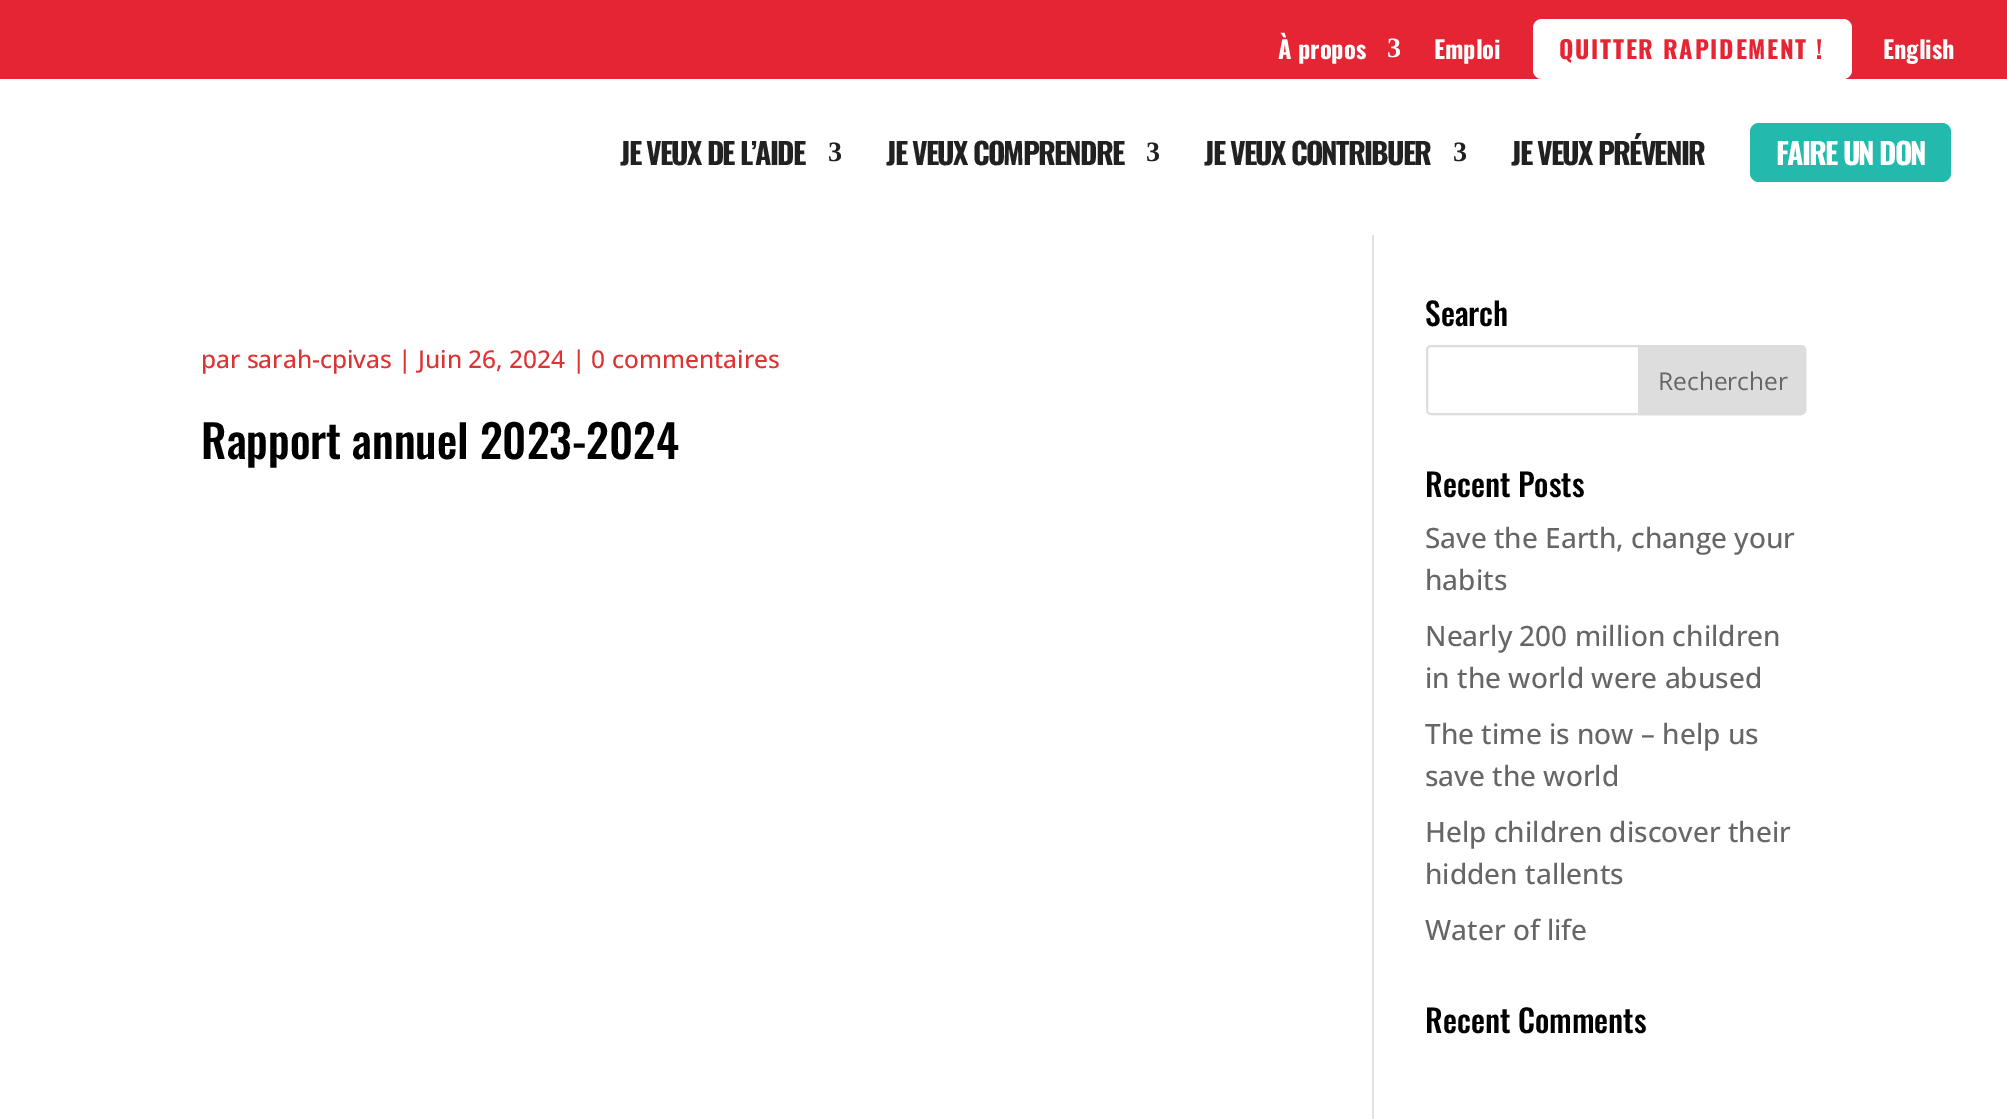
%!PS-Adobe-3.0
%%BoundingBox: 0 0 2007 1119
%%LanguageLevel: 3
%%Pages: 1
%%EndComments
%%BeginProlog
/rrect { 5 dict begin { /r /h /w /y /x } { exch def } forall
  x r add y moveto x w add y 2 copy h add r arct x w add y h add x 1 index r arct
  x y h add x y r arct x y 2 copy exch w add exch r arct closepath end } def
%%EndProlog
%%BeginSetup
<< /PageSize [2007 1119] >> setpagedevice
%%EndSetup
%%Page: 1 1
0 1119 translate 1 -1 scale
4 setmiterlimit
1 setgray
0 0 2007 1119 rectfill
0.898 0.145 0.2 setrgbcolor
0 0 2007 79 rectfill
1 setgray
1533 19 319 60 9 rrect fill
0.137 0.725 0.675 setrgbcolor
1750 123 201 59 9 rrect fill
0.886 setgray
1372 235 2 884 rectfill
0.867 setgray
2 setlinewidth
1427 346 378 68 4 rrect stroke
newpath 1639 346 moveto 1801 346 lineto 1803 346 1805 348 1805 350 curveto 1805 410 lineto 1805 412 1803 414 1801 414 curveto 1639 414 lineto closepath gsave fill grestore
stroke
/Oswald-Bold [24.5 0 0 -24.5 0 0] selectfont
1 setgray
1278 59 moveto (À propos) show
/LiberationSerif-Bold [28 0 0 -28 0 0] selectfont
1387 57 moveto (3) show
/Oswald-Bold [24.5 0 0 -24.5 0 0] selectfont
1434 59 moveto (Emploi) show
0.898 0.145 0.2 setrgbcolor
1559 59 moveto 1.75 0 (QUITTER RAPIDEMENT !) ashow
1 setgray
1883 59 moveto (English) show
/Oswald-Bold [29.75 0 0 -29.75 0 0] selectfont
0.129 setgray
620 165 moveto -1.75 0 (JE VEUX DE L’AIDE) ashow
/LiberationSerif-Bold [28 0 0 -28 0 0] selectfont
828 161 moveto -1.75 0 (3) ashow
/Oswald-Bold [29.75 0 0 -29.75 0 0] selectfont
886 165 moveto -1.75 0 (JE VEUX COMPRENDRE) ashow
/LiberationSerif-Bold [28 0 0 -28 0 0] selectfont
1146 161 moveto -1.75 0 (3) ashow
/Oswald-Bold [29.75 0 0 -29.75 0 0] selectfont
1204 165 moveto -1.75 0 (JE VEUX CONTRIBUER) ashow
/LiberationSerif-Bold [28 0 0 -28 0 0] selectfont
1453 161 moveto -1.75 0 (3) ashow
/Oswald-Bold [29.75 0 0 -29.75 0 0] selectfont
1511 165 moveto -1.75 0 (JE VEUX PRÉVENIR) ashow
1 setgray
1776 165 moveto -1.75 0 (FAIRE UN DON) ashow
/OpenSans-Medium [24.5 0 0 -24.5 0 0] selectfont
0.867 0.2 0.2 setrgbcolor
201 368 moveto (par sarah-cpivas | Juin 26, 2024 | 0 commentaires) show
/Oswald-Medium [45.5 0 0 -45.5 0 0] selectfont
0 setgray
201 459 moveto (Rapport annuel 2023-2024) show
/Oswald-Medium [31.5 0 0 -31.5 0 0] selectfont
1425 326 moveto (Search) show
/OpenSans-Regular [24.5 0 0 -24.5 0 0] selectfont
0.4 setgray
1658 390 moveto (Rechercher) show
/Oswald-Medium [31.5 0 0 -31.5 0 0] selectfont
0 setgray
1425 497 moveto (Recent Posts) show
/OpenSans-Medium [28 0 0 -28 0 0] selectfont
0.4 setgray
1425 548 moveto (Save the Earth, change your) show
1425 590 moveto (habits) show
1425 646 moveto (Nearly 200 million children) show
1425 688 moveto (in the world were abused) show
1425 744 moveto (The time is now – help us) show
1425 786 moveto (save the world) show
1425 842 moveto (Help children discover their) show
1425 884 moveto (hidden tallents) show
1425 940 moveto (Water of life) show
/Oswald-Medium [31.5 0 0 -31.5 0 0] selectfont
0 setgray
1425 1033 moveto (Recent Comments) show
showpage
%%EOF
